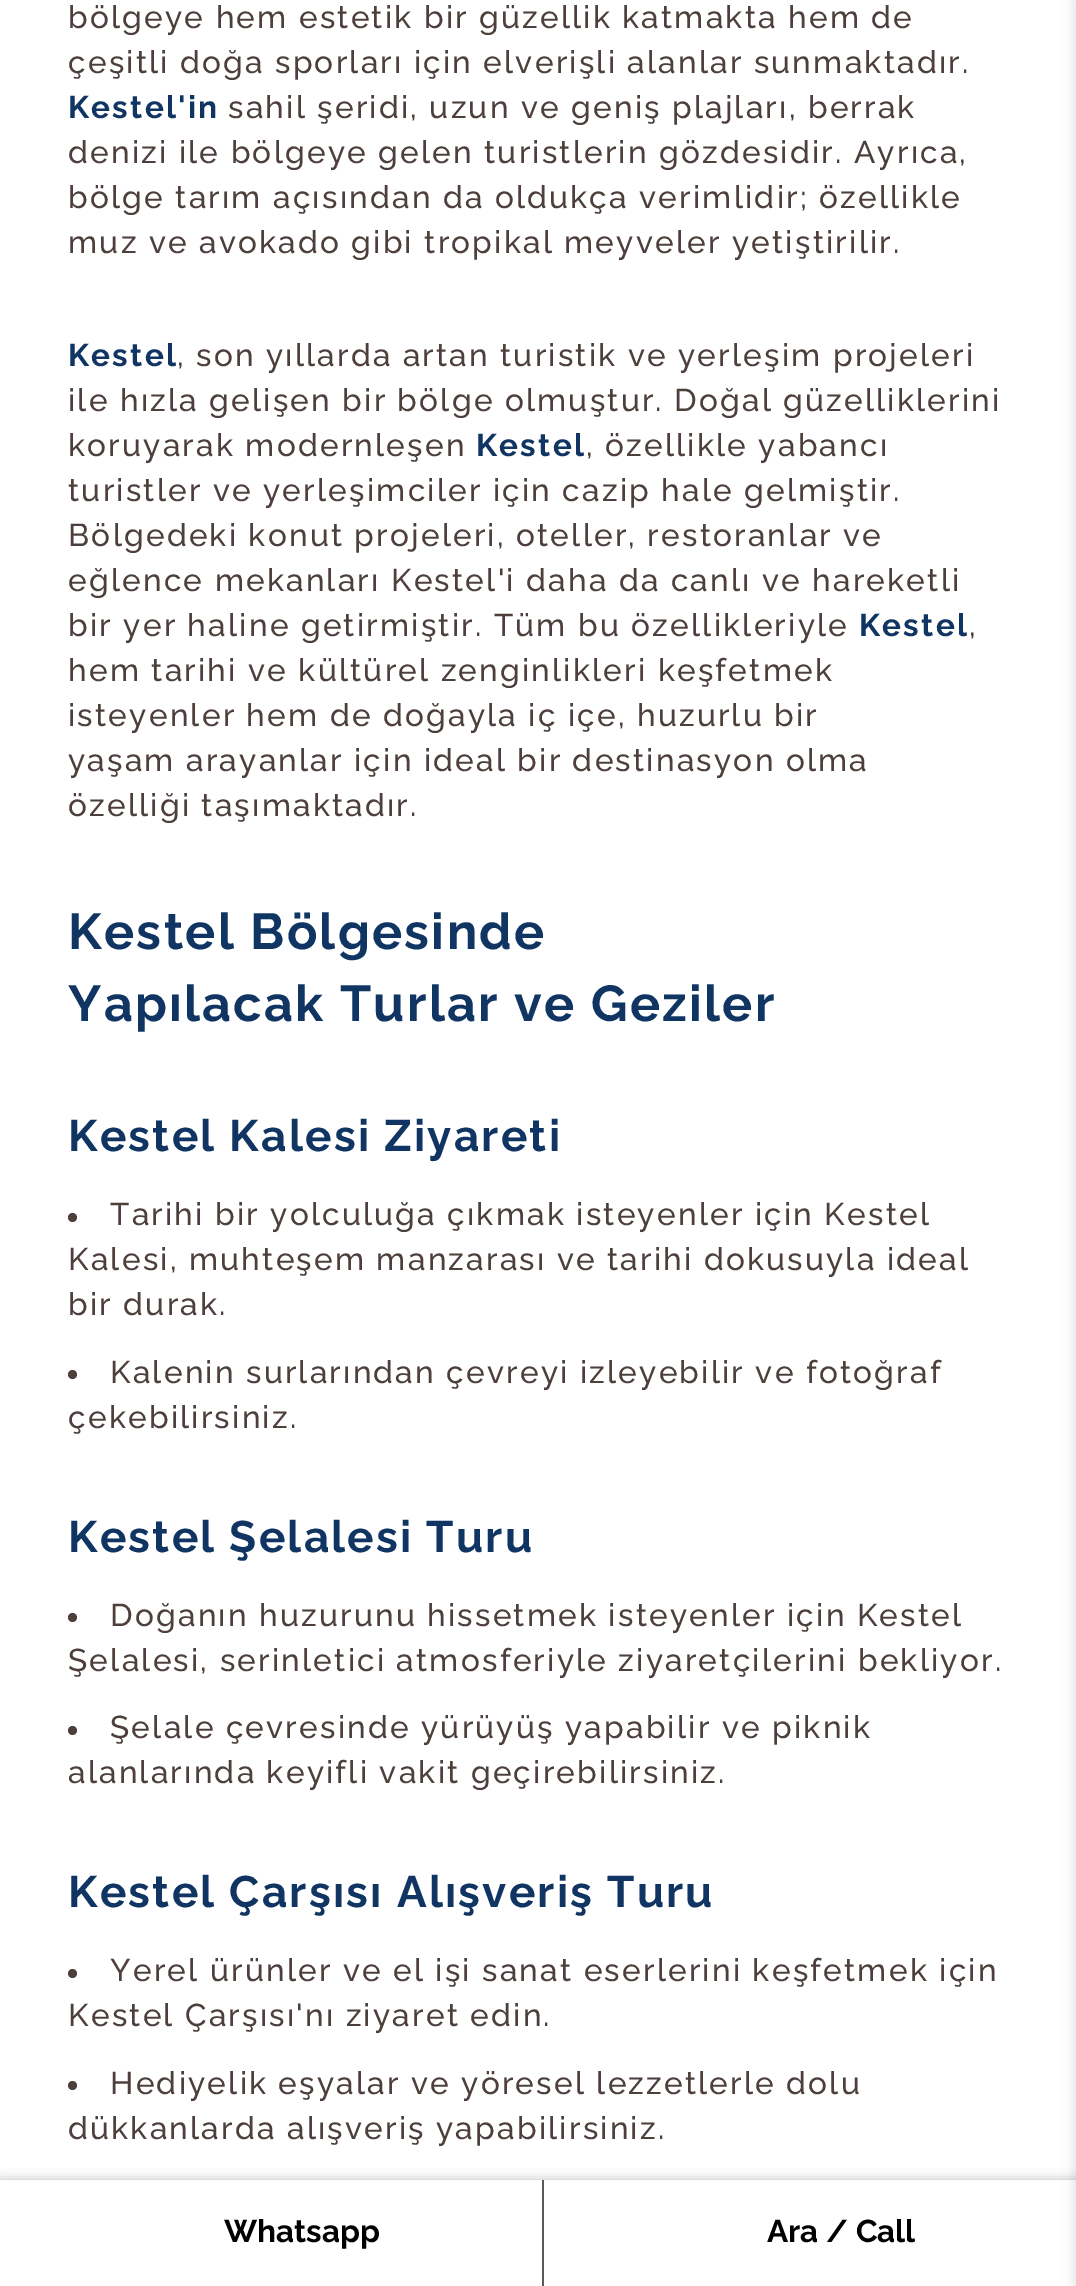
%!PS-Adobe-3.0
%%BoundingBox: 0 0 1076 2286
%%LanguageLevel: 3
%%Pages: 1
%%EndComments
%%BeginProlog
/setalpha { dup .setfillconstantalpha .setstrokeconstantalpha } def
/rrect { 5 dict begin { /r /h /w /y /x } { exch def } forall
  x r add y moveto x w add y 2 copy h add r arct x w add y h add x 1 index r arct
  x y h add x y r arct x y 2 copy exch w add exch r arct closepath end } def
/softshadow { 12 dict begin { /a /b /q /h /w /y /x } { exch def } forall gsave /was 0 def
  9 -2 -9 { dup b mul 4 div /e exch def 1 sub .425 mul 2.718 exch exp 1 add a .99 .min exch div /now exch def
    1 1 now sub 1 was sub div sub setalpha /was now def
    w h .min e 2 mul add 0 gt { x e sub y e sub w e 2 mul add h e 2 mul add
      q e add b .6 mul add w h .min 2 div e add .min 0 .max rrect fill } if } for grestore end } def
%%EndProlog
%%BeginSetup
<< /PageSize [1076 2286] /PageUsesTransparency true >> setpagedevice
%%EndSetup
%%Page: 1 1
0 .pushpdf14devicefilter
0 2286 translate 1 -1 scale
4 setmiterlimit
1 setgray
0 0 1076 2286 rectfill
0.298 0.247 0.235 setrgbcolor
newpath 72.5 1217.5 4.5 0 360 arc closepath fill
newpath 72.5 1374.5 4.5 0 360 arc closepath fill
newpath 72.5 1617.5 4.5 0 360 arc closepath fill
newpath 72.5 1730.5 4.5 0 360 arc closepath fill
newpath 72.5 1973.5 4.5 0 360 arc closepath fill
newpath 72.5 2085.5 4.5 0 360 arc closepath fill
0 setgray
0 2180 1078 106 0 5.5 0.25 softshadow
1 setgray
0 2180 1076 106 rectfill
0.353 0.349 0.349 setrgbcolor
542 2180 2 106 rectfill
0 setgray
1073 0 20 2286 0 5.5 0.1 softshadow
/Raleway-Medium [31.5 0 0 -31.5 0 0] selectfont
0.298 0.247 0.235 setrgbcolor
68 28 moveto 2.25 0 (bölgeye hem estetik bir güzellik katmakta hem de) ashow
68 73 moveto 2.25 0 (çeşitli doğa sporları için elverişli alanlar sunmaktadır.) ashow
/Raleway-Bold [31.5 0 0 -31.5 0 0] selectfont
0.063 0.208 0.388 setrgbcolor
68 118 moveto 2.25 0 (Kestel'in) ashow
/Raleway-Medium [31.5 0 0 -31.5 0 0] selectfont
0.298 0.247 0.235 setrgbcolor
228 118 moveto 2.25 0 (sahil şeridi, uzun ve geniş plajları, berrak) ashow
68 163 moveto 2.25 0 (denizi ile bölgeye gelen turistlerin gözdesidir. Ayrıca,) ashow
68 208 moveto 2.25 0 (bölge tarım açısından da oldukça verimlidir; özellikle) ashow
68 253 moveto 2.25 0 (muz ve avokado gibi tropikal meyveler yetiştirilir.) ashow
/Raleway-Bold [31.5 0 0 -31.5 0 0] selectfont
0.063 0.208 0.388 setrgbcolor
68 366 moveto 2.25 0 (Kestel) ashow
/Raleway-Medium [31.5 0 0 -31.5 0 0] selectfont
0.298 0.247 0.235 setrgbcolor
177 366 moveto 2.25 0 (, son yıllarda artan turistik ve yerleşim projeleri) ashow
68 411 moveto 2.25 0 (ile hızla gelişen bir bölge olmuştur. Doğal güzelliklerini) ashow
68 456 moveto 2.25 0 (koruyarak modernleşen) ashow
/Raleway-Bold [31.5 0 0 -31.5 0 0] selectfont
0.063 0.208 0.388 setrgbcolor
476 456 moveto 2.25 0 (Kestel) ashow
/Raleway-Medium [31.5 0 0 -31.5 0 0] selectfont
0.298 0.247 0.235 setrgbcolor
586 456 moveto 2.25 0 (, özellikle yabancı) ashow
68 501 moveto 2.25 0 (turistler ve yerleşimciler için cazip hale gelmiştir.) ashow
68 546 moveto 2.25 0 (Bölgedeki konut projeleri, oteller, restoranlar ve) ashow
68 591 moveto 2.25 0 (eğlence mekanları Kestel'i daha da canlı ve hareketli) ashow
68 636 moveto 2.25 0 (bir yer haline getirmiştir. Tüm bu özellikleriyle) ashow
/Raleway-Bold [31.5 0 0 -31.5 0 0] selectfont
0.063 0.208 0.388 setrgbcolor
859 636 moveto 2.25 0 (Kestel) ashow
/Raleway-Medium [31.5 0 0 -31.5 0 0] selectfont
0.298 0.247 0.235 setrgbcolor
969 636 moveto 2.25 0 (,) ashow
68 681 moveto 2.25 0 (hem tarihi ve kültürel zenginlikleri keşfetmek) ashow
68 726 moveto 2.25 0 (isteyenler hem de doğayla iç içe, huzurlu bir) ashow
68 771 moveto 2.25 0 (yaşam arayanlar için ideal bir destinasyon olma) ashow
68 816 moveto 2.25 0 (özelliği taşımaktadır.) ashow
/Raleway-Bold [50.4 0 0 -50.4 0 0] selectfont
0.063 0.208 0.388 setrgbcolor
68 949 moveto 2.25 0 (Kestel Bölgesinde) ashow
68 1021 moveto 2.25 0 (Yapılacak Turlar ve Geziler) ashow
/Raleway-Bold [44.1 0 0 -44.1 0 0] selectfont
68 1151 moveto 2.25 0 (Kestel Kalesi Ziyareti) ashow
/Raleway-Medium [31.5 0 0 -31.5 0 0] selectfont
0.298 0.247 0.235 setrgbcolor
110 1225 moveto 2.25 0 (Tarihi bir yolculuğa çıkmak isteyenler için Kestel) ashow
68 1270 moveto 2.25 0 (Kalesi, muhteşem manzarası ve tarihi dokusuyla ideal) ashow
68 1315 moveto 2.25 0 (bir durak.) ashow
110 1383 moveto 2.25 0 (Kalenin surlarından çevreyi izleyebilir ve fotoğraf) ashow
68 1428 moveto 2.25 0 (çekebilirsiniz.) ashow
/Raleway-Bold [44.1 0 0 -44.1 0 0] selectfont
0.063 0.208 0.388 setrgbcolor
68 1552 moveto 2.25 0 (Kestel Şelalesi Turu) ashow
/Raleway-Medium [31.5 0 0 -31.5 0 0] selectfont
0.298 0.247 0.235 setrgbcolor
110 1626 moveto 2.25 0 (Doğanın huzurunu hissetmek isteyenler için Kestel) ashow
68 1671 moveto 2.25 0 (Şelalesi, serinletici atmosferiyle ziyaretçilerini bekliyor.) ashow
110 1738 moveto 2.25 0 (Şelale çevresinde yürüyüş yapabilir ve piknik) ashow
68 1783 moveto 2.25 0 (alanlarında keyifli vakit geçirebilirsiniz.) ashow
/Raleway-Bold [44.1 0 0 -44.1 0 0] selectfont
0.063 0.208 0.388 setrgbcolor
68 1907 moveto 2.25 0 (Kestel Çarşısı Alışveriş Turu) ashow
/Raleway-Medium [31.5 0 0 -31.5 0 0] selectfont
0.298 0.247 0.235 setrgbcolor
110 1981 moveto 2.25 0 (Yerel ürünler ve el işi sanat eserlerini keşfetmek için) ashow
68 2026 moveto 2.25 0 (Kestel Çarşısı'nı ziyaret edin.) ashow
110 2094 moveto 2.25 0 (Hediyelik eşyalar ve yöresel lezzetlerle dolu) ashow
68 2139 moveto 2.25 0 (dükkanlarda alışveriş yapabilirsiniz.) ashow
/Raleway-Bold [31.5 0 0 -31.5 0 0] selectfont
0 setgray
224 2242 moveto (Whatsapp) show
767 2242 moveto (Ara / Call) show
.poppdf14devicefilter showpage
%%EOF
